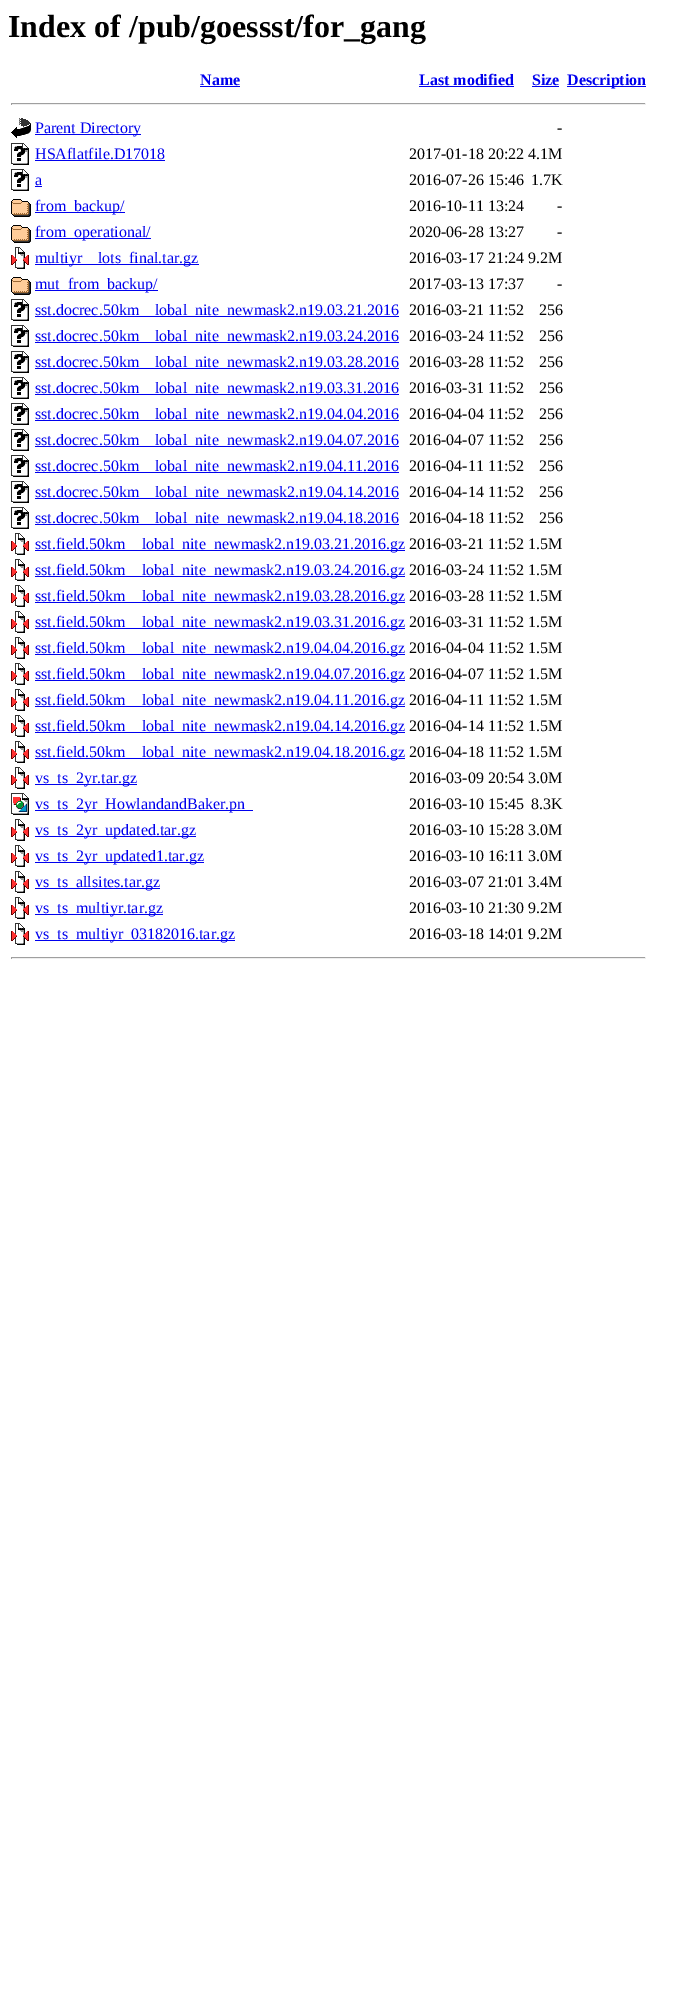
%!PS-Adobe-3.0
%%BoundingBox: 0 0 687 2015
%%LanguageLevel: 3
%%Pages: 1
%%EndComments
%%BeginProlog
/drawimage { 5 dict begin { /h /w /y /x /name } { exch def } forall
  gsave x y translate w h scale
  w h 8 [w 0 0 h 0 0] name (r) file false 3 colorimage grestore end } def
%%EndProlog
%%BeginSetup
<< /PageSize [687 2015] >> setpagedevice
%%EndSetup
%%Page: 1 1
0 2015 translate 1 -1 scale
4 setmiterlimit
1 setgray
0 0 687 2015 rectfill
0 0 0.933 setrgbcolor
200 86 40 1 rectfill
419 86 95 1 rectfill
532 86 27 1 rectfill
567 86 79 1 rectfill
0.624 setgray
11 103 635 1 rectfill
0.933 setgray
645 103 1 2 rectfill
11 104 635 1 rectfill
0.624 setgray
11 103 1 2 rectfill
(images/1.raw) 11 118 20 20 drawimage
0 0 0.933 setrgbcolor
35 134 106 1 rectfill
(images/2.raw) 11 143 18 22 drawimage
35 160 130 1 rectfill
(images/2.raw) 11 169 18 22 drawimage
35 186 7 1 rectfill
(images/3.raw) 11 199 20 18 drawimage
35 212 90 1 rectfill
(images/3.raw) 11 225 20 18 drawimage
35 238 116 1 rectfill
(images/4.raw) 11 247 18 22 drawimage
35 264 164 1 rectfill
(images/3.raw) 11 277 20 18 drawimage
35 290 123 1 rectfill
(images/2.raw) 11 299 18 22 drawimage
35 316 364 1 rectfill
(images/2.raw) 11 325 18 22 drawimage
35 342 364 1 rectfill
(images/2.raw) 11 351 18 22 drawimage
35 368 364 1 rectfill
(images/2.raw) 11 377 18 22 drawimage
35 394 364 1 rectfill
(images/2.raw) 11 403 18 22 drawimage
35 420 364 1 rectfill
(images/2.raw) 11 429 18 22 drawimage
35 446 364 1 rectfill
(images/2.raw) 11 455 18 22 drawimage
35 472 364 1 rectfill
(images/2.raw) 11 481 18 22 drawimage
35 498 364 1 rectfill
(images/2.raw) 11 507 18 22 drawimage
35 524 364 1 rectfill
(images/4.raw) 11 533 18 22 drawimage
35 550 370 1 rectfill
(images/4.raw) 11 559 18 22 drawimage
35 576 370 1 rectfill
(images/4.raw) 11 585 18 22 drawimage
35 602 370 1 rectfill
(images/4.raw) 11 611 18 22 drawimage
35 628 370 1 rectfill
(images/4.raw) 11 637 18 22 drawimage
35 654 370 1 rectfill
(images/4.raw) 11 663 18 22 drawimage
35 680 370 1 rectfill
(images/4.raw) 11 689 18 22 drawimage
35 706 370 1 rectfill
(images/4.raw) 11 715 18 22 drawimage
35 732 370 1 rectfill
(images/4.raw) 11 741 18 22 drawimage
35 758 370 1 rectfill
(images/4.raw) 11 767 18 22 drawimage
35 784 102 1 rectfill
(images/5.raw) 11 793 18 22 drawimage
35 810 218 1 rectfill
(images/4.raw) 11 819 18 22 drawimage
35 836 161 1 rectfill
(images/4.raw) 11 845 18 22 drawimage
35 862 169 1 rectfill
(images/4.raw) 11 871 18 22 drawimage
35 888 125 1 rectfill
(images/4.raw) 11 897 18 22 drawimage
35 914 128 1 rectfill
(images/4.raw) 11 923 18 22 drawimage
35 940 200 1 rectfill
0.624 setgray
11 957 635 1 rectfill
0.933 setgray
645 957 1 2 rectfill
11 958 635 1 rectfill
0.624 setgray
11 957 1 2 rectfill
/LiberationSerif-Bold [32 0 0 -32 0 0] selectfont
0 setgray
8 37 moveto (Index of /pub/goessst/for_gang) show
/LiberationSerif-Bold [16 0 0 -16 0 0] selectfont
0 0 0.933 setrgbcolor
200 85 moveto (Name) show
419 85 moveto (Last modified) show
532 85 moveto (Size) show
567 85 moveto (Description) show
/LiberationSerif-Regular [16 0 0 -16 0 0] selectfont
35 133 moveto (Parent Directory) show
0 setgray
557 133 moveto (-) show
0 0 0.933 setrgbcolor
35 159 moveto (HSAflatfile.D17018) show
0 setgray
409 159 moveto (2017-01-18 20:22 4.1M) show
0 0 0.933 setrgbcolor
35 185 moveto (a) show
0 setgray
409 185 moveto (2016-07-26 15:46) show
531 185 moveto (1.7K) show
0 0 0.933 setrgbcolor
35 211 moveto (from_backup/) show
0 setgray
409 211 moveto (2016-10-11 13:24) show
557 211 moveto (-) show
0 0 0.933 setrgbcolor
35 237 moveto (from_operational/) show
0 setgray
409 237 moveto (2020-06-28 13:27) show
557 237 moveto (-) show
0 0 0.933 setrgbcolor
35 263 moveto (multiyr) show
98 263 moveto (lots_final.tar.gz) show
0 setgray
409 263 moveto (2016-03-17 21:24 9.2M) show
0 0 0.933 setrgbcolor
35 289 moveto (mut_from_backup/) show
0 setgray
409 289 moveto (2017-03-13 17:37) show
557 289 moveto (-) show
0 0 0.933 setrgbcolor
35 315 moveto (sst.docrec.50km) show
155 315 moveto (lobal_nite_newmask2.n19.03.21.2016) show
0 setgray
409 315 moveto (2016-03-21 11:52) show
539 315 moveto (256) show
0 0 0.933 setrgbcolor
35 341 moveto (sst.docrec.50km) show
155 341 moveto (lobal_nite_newmask2.n19.03.24.2016) show
0 setgray
409 341 moveto (2016-03-24 11:52) show
539 341 moveto (256) show
0 0 0.933 setrgbcolor
35 367 moveto (sst.docrec.50km) show
155 367 moveto (lobal_nite_newmask2.n19.03.28.2016) show
0 setgray
409 367 moveto (2016-03-28 11:52) show
539 367 moveto (256) show
0 0 0.933 setrgbcolor
35 393 moveto (sst.docrec.50km) show
155 393 moveto (lobal_nite_newmask2.n19.03.31.2016) show
0 setgray
409 393 moveto (2016-03-31 11:52) show
539 393 moveto (256) show
0 0 0.933 setrgbcolor
35 419 moveto (sst.docrec.50km) show
155 419 moveto (lobal_nite_newmask2.n19.04.04.2016) show
0 setgray
409 419 moveto (2016-04-04 11:52) show
539 419 moveto (256) show
0 0 0.933 setrgbcolor
35 445 moveto (sst.docrec.50km) show
155 445 moveto (lobal_nite_newmask2.n19.04.07.2016) show
0 setgray
409 445 moveto (2016-04-07 11:52) show
539 445 moveto (256) show
0 0 0.933 setrgbcolor
35 471 moveto (sst.docrec.50km) show
155 471 moveto (lobal_nite_newmask2.n19.04.11.2016) show
0 setgray
409 471 moveto (2016-04-11 11:52) show
539 471 moveto (256) show
0 0 0.933 setrgbcolor
35 497 moveto (sst.docrec.50km) show
155 497 moveto (lobal_nite_newmask2.n19.04.14.2016) show
0 setgray
409 497 moveto (2016-04-14 11:52) show
539 497 moveto (256) show
0 0 0.933 setrgbcolor
35 523 moveto (sst.docrec.50km) show
155 523 moveto (lobal_nite_newmask2.n19.04.18.2016) show
0 setgray
409 523 moveto (2016-04-18 11:52) show
539 523 moveto (256) show
0 0 0.933 setrgbcolor
35 549 moveto (sst.field.50km) show
142 549 moveto (lobal_nite_newmask2.n19.03.21.2016.gz) show
0 setgray
409 549 moveto (2016-03-21 11:52 1.5M) show
0 0 0.933 setrgbcolor
35 575 moveto (sst.field.50km) show
142 575 moveto (lobal_nite_newmask2.n19.03.24.2016.gz) show
0 setgray
409 575 moveto (2016-03-24 11:52 1.5M) show
0 0 0.933 setrgbcolor
35 601 moveto (sst.field.50km) show
142 601 moveto (lobal_nite_newmask2.n19.03.28.2016.gz) show
0 setgray
409 601 moveto (2016-03-28 11:52 1.5M) show
0 0 0.933 setrgbcolor
35 627 moveto (sst.field.50km) show
142 627 moveto (lobal_nite_newmask2.n19.03.31.2016.gz) show
0 setgray
409 627 moveto (2016-03-31 11:52 1.5M) show
0 0 0.933 setrgbcolor
35 653 moveto (sst.field.50km) show
142 653 moveto (lobal_nite_newmask2.n19.04.04.2016.gz) show
0 setgray
409 653 moveto (2016-04-04 11:52 1.5M) show
0 0 0.933 setrgbcolor
35 679 moveto (sst.field.50km) show
142 679 moveto (lobal_nite_newmask2.n19.04.07.2016.gz) show
0 setgray
409 679 moveto (2016-04-07 11:52 1.5M) show
0 0 0.933 setrgbcolor
35 705 moveto (sst.field.50km) show
142 705 moveto (lobal_nite_newmask2.n19.04.11.2016.gz) show
0 setgray
409 705 moveto (2016-04-11 11:52 1.5M) show
0 0 0.933 setrgbcolor
35 731 moveto (sst.field.50km) show
142 731 moveto (lobal_nite_newmask2.n19.04.14.2016.gz) show
0 setgray
409 731 moveto (2016-04-14 11:52 1.5M) show
0 0 0.933 setrgbcolor
35 757 moveto (sst.field.50km) show
142 757 moveto (lobal_nite_newmask2.n19.04.18.2016.gz) show
0 setgray
409 757 moveto (2016-04-18 11:52 1.5M) show
0 0 0.933 setrgbcolor
35 783 moveto (vs_ts_2yr.tar.gz) show
0 setgray
409 783 moveto (2016-03-09 20:54 3.0M) show
0 0 0.933 setrgbcolor
35 809 moveto (vs_ts_2yr_HowlandandBaker.pn) show
0 setgray
409 809 moveto (2016-03-10 15:45) show
531 809 moveto (8.3K) show
0 0 0.933 setrgbcolor
35 835 moveto (vs_ts_2yr_updated.tar.gz) show
0 setgray
409 835 moveto (2016-03-10 15:28 3.0M) show
0 0 0.933 setrgbcolor
35 861 moveto (vs_ts_2yr_updated1.tar.gz) show
0 setgray
409 861 moveto (2016-03-10 16:11 3.0M) show
0 0 0.933 setrgbcolor
35 887 moveto (vs_ts_allsites.tar.gz) show
0 setgray
409 887 moveto (2016-03-07 21:01 3.4M) show
0 0 0.933 setrgbcolor
35 913 moveto (vs_ts_multiyr.tar.gz) show
0 setgray
409 913 moveto (2016-03-10 21:30 9.2M) show
0 0 0.933 setrgbcolor
35 939 moveto (vs_ts_multiyr_03182016.tar.gz) show
0 setgray
409 939 moveto (2016-03-18 14:01 9.2M) show
showpage
%%EOF
